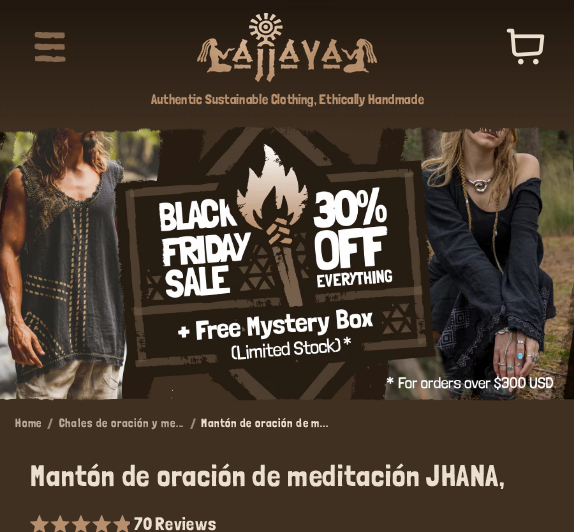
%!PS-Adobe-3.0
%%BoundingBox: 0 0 574 532
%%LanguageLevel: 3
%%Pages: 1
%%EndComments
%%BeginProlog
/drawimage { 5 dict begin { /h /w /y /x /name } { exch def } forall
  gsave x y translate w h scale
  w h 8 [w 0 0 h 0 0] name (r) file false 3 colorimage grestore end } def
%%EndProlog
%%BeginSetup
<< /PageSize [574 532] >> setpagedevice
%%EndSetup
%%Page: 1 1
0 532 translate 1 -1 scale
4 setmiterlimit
0.251 0.188 0.129 setrgbcolor
0 0 574 532 rectfill
(images/5.raw) 0 126 574 275 drawimage
(images/1.raw) 0 0 574 136 drawimage
(images/2.raw) 34 31 32 31 drawimage
(images/3.raw) 197 13 180 69 drawimage
(images/4.raw) 506 28 39 37 drawimage
(images/6.raw) 30 515 102 17 drawimage
(images/7.raw) 30 515 100 17 drawimage
/LondrinaSolid-Regular [14 0 0 -14 0 0] selectfont
0.718 0.561 0.427 setrgbcolor
151 104 moveto (Authentic Sustainable Clothing, Ethically Handmade) show
/LondrinaSolid-Regular [12 0 0 -12 0 0] selectfont
0.722 0.671 0.604 setrgbcolor
15 427 moveto 0.6 0 (Home) ashow
/LondrinaSolid-Regular [15 0 0 -15 0 0] selectfont
0.604 0.549 0.486 setrgbcolor
47 429 moveto 0.6 0 (/) ashow
/LondrinaSolid-Regular [12 0 0 -12 0 0] selectfont
0.722 0.671 0.604 setrgbcolor
59 427 moveto 0.6 0 (Chales de oración y me...) ashow
/LondrinaSolid-Regular [15 0 0 -15 0 0] selectfont
0.604 0.549 0.486 setrgbcolor
190 429 moveto 0.6 0 (/) ashow
/LondrinaSolid-Regular [12 0 0 -12 0 0] selectfont
0.922 0.875 0.808 setrgbcolor
201 427 moveto 0.6 0 (Mantón de oración de m...) ashow
/LondrinaSolid-Regular [30 0 0 -30 0 0] selectfont
30 486 moveto 0.6 0 (Mantón de oración de meditación JHANA,) ashow
/LondrinaSolid-Regular [18 0 0 -18 0 0] selectfont
134 530 moveto 0.6 0 (70) ashow
155 530 moveto 0.6 0 (Reviews) ashow
showpage
%%EOF
